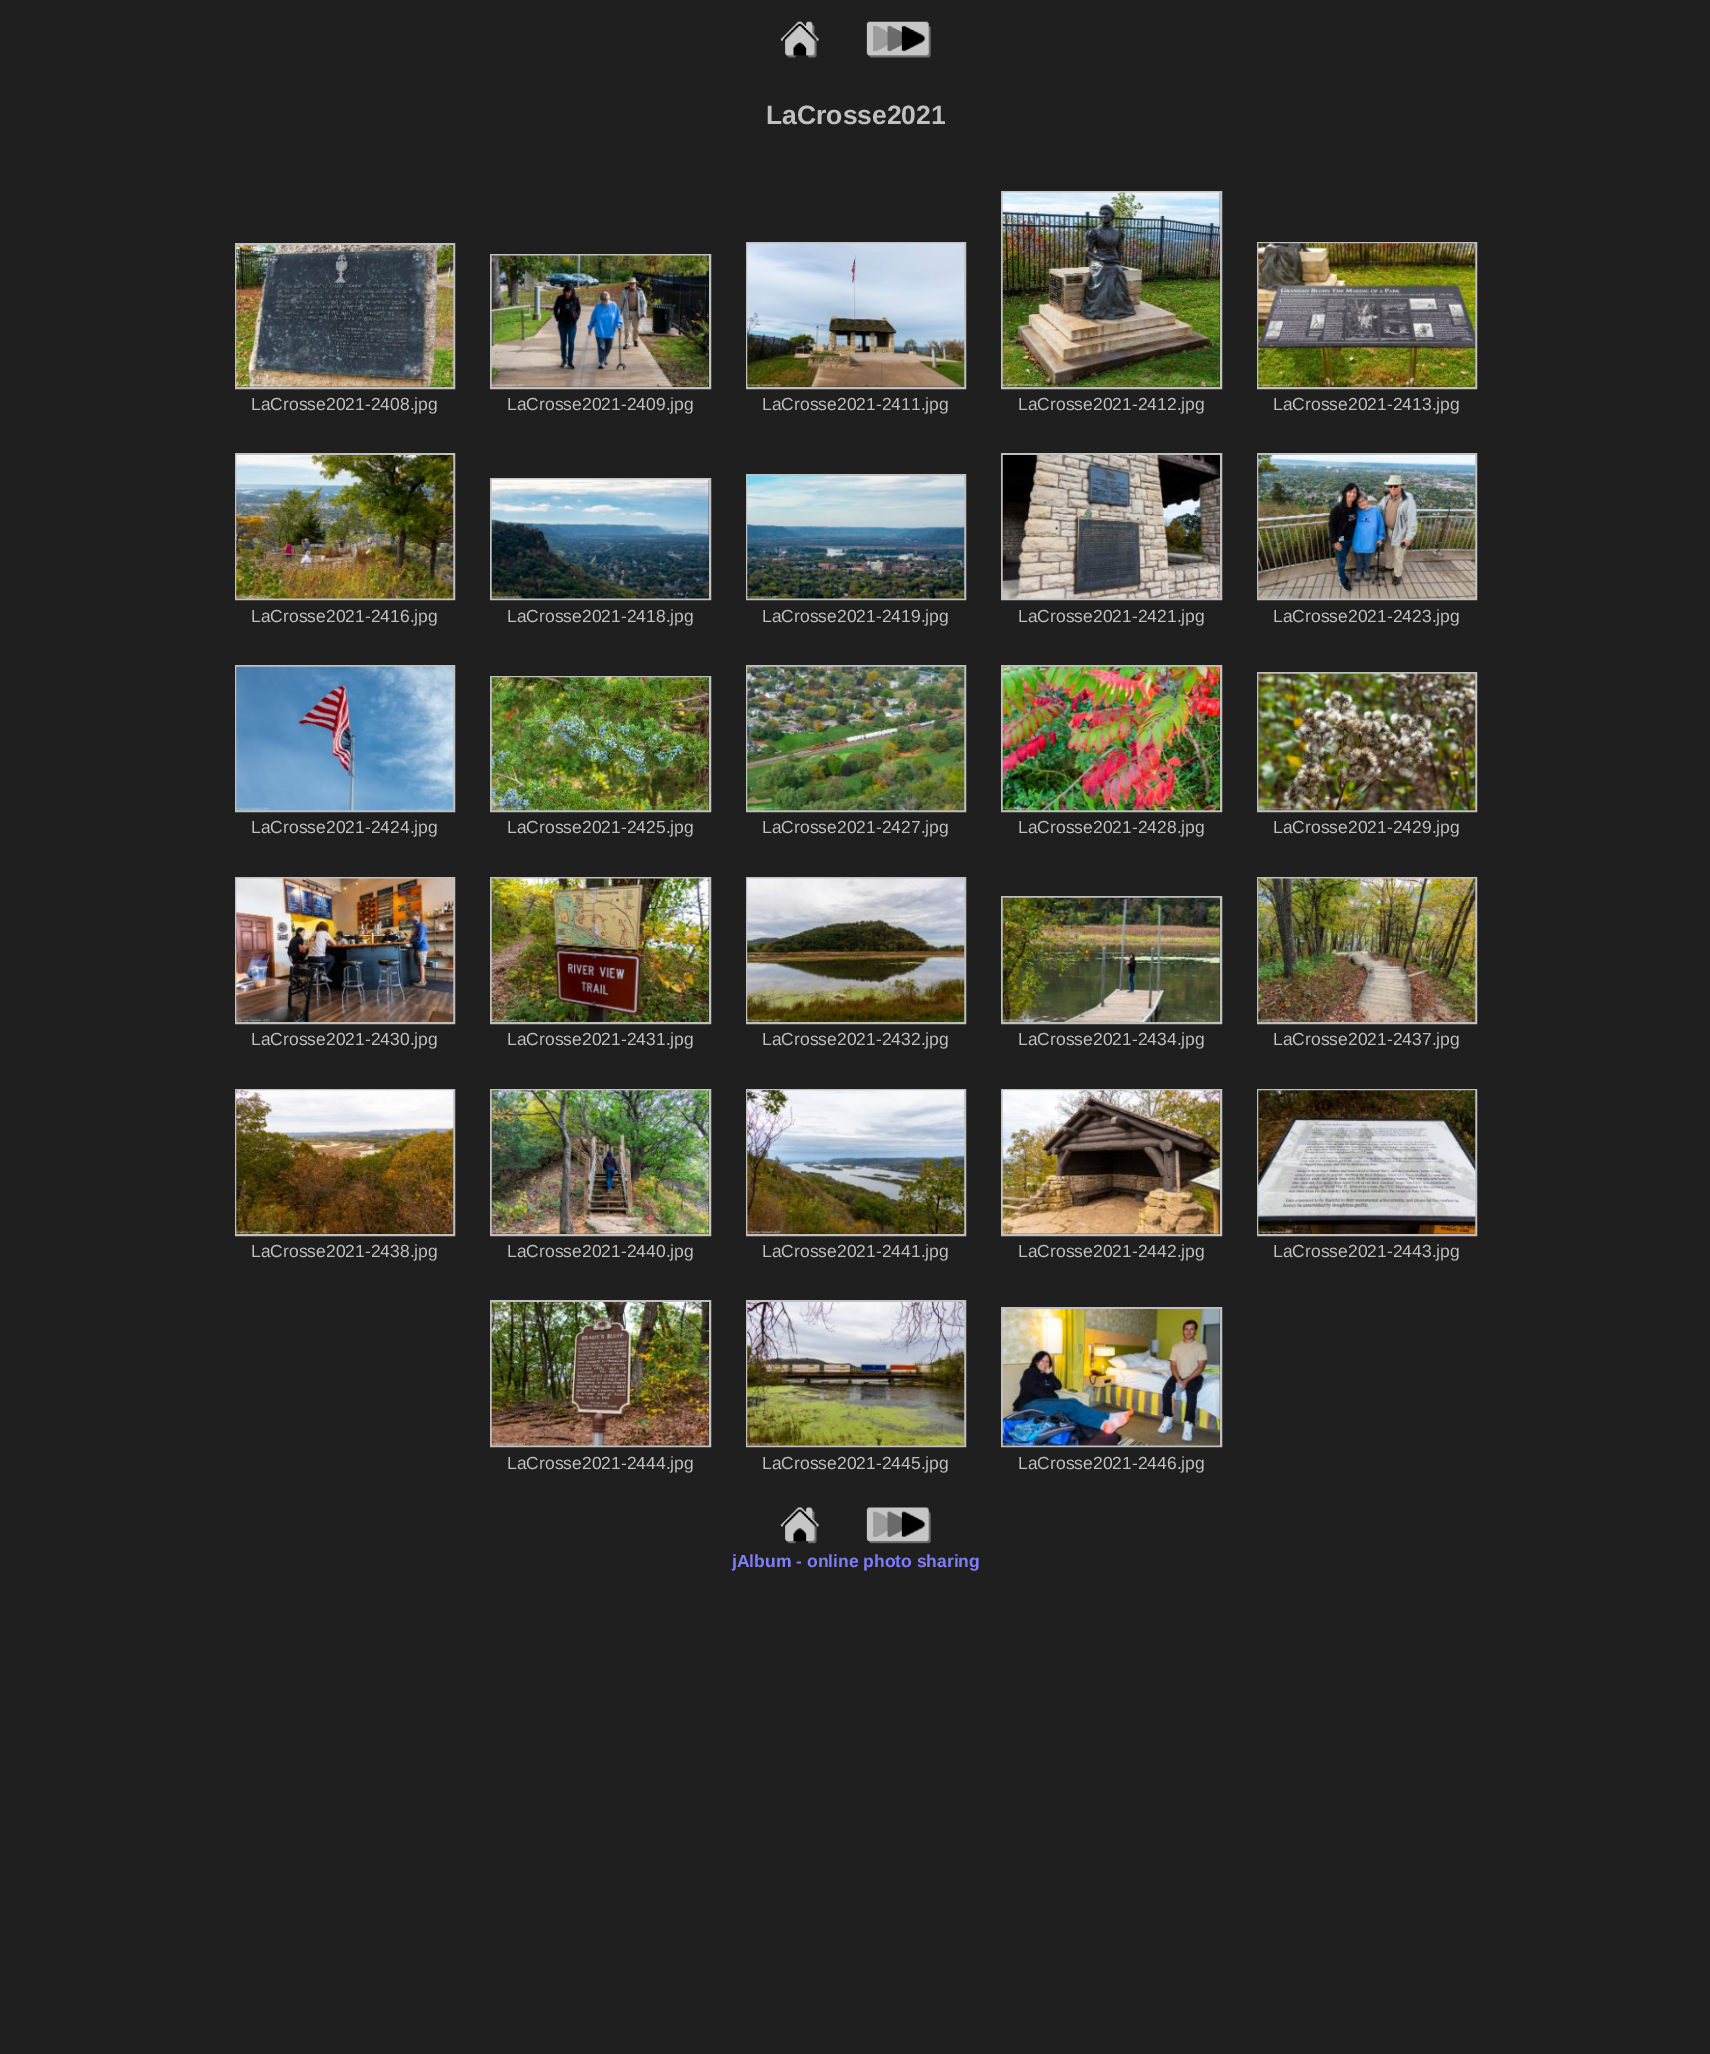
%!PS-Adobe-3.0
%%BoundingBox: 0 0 1710 2054
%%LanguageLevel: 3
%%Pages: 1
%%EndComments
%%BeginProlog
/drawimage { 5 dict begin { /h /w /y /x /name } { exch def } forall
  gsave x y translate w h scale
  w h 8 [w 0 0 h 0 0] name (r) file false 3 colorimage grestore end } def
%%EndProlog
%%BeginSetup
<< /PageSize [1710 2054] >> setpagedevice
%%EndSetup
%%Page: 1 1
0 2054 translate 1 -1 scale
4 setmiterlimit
0.122 setgray
0 0 1710 2054 rectfill
(images/1.raw) 780 21 39 37 drawimage
(images/2.raw) 866 21 65 37 drawimage
0.753 setgray
2 setlinewidth
236 244 218 144 rectstroke
(images/3.raw) 236 245 218 142 drawimage
491 255 219 133 rectstroke
(images/4.raw) 491 255 218 132 drawimage
747 243 218 145 rectstroke
(images/5.raw) 747 243 218 144 drawimage
1002 192 219 196 rectstroke
(images/6.raw) 1002 192 218 195 drawimage
1258 243 218 145 rectstroke
(images/7.raw) 1258 243 218 144 drawimage
236 454 218 145 rectstroke
(images/8.raw) 236 455 218 144 drawimage
491 479 219 120 rectstroke
(images/9.raw) 491 479 218 120 drawimage
747 475 218 124 rectstroke
(images/10.raw) 747 476 218 123 drawimage
1002 454 219 145 rectstroke
(images/11.raw) 1002 455 218 144 drawimage
1258 454 218 145 rectstroke
(images/12.raw) 1258 455 218 144 drawimage
236 666 218 145 rectstroke
(images/13.raw) 236 666 218 145 drawimage
491 677 219 134 rectstroke
(images/14.raw) 491 677 218 134 drawimage
747 666 218 145 rectstroke
(images/15.raw) 747 666 218 145 drawimage
1002 666 219 145 rectstroke
(images/16.raw) 1002 666 218 145 drawimage
1258 673 218 138 rectstroke
(images/17.raw) 1258 673 218 138 drawimage
236 878 218 145 rectstroke
(images/18.raw) 236 878 218 144 drawimage
491 878 219 145 rectstroke
(images/19.raw) 491 878 218 144 drawimage
747 878 218 145 rectstroke
(images/20.raw) 747 878 218 144 drawimage
1002 897 219 126 rectstroke
(images/21.raw) 1002 897 218 125 drawimage
1258 878 218 145 rectstroke
(images/22.raw) 1258 878 218 144 drawimage
236 1090 218 145 rectstroke
(images/23.raw) 236 1090 218 144 drawimage
491 1090 219 145 rectstroke
(images/24.raw) 491 1090 218 144 drawimage
747 1090 218 145 rectstroke
(images/25.raw) 747 1090 218 144 drawimage
1002 1090 219 145 rectstroke
(images/26.raw) 1002 1090 218 144 drawimage
1258 1090 218 145 rectstroke
(images/27.raw) 1258 1090 218 144 drawimage
491 1301 219 145 rectstroke
(images/28.raw) 491 1302 218 144 drawimage
747 1301 218 145 rectstroke
(images/29.raw) 747 1302 218 144 drawimage
1002 1308 219 138 rectstroke
(images/30.raw) 1002 1309 218 137 drawimage
(images/31.raw) 780 1507 39 37 drawimage
(images/32.raw) 866 1507 65 37 drawimage
/LiberationSans-Bold [26.5 0 0 -26.5 0 0] selectfont
766 124 moveto (LaCrosse2021) show
/LiberationSans-Regular [17.5 0 0 -17.5 0 0] selectfont
251 410 moveto (LaCrosse2021-2408.jpg) show
507 410 moveto (LaCrosse2021-2409.jpg) show
762 410 moveto (LaCrosse2021-2411.jpg) show
1018 410 moveto (LaCrosse2021-2412.jpg) show
1273 410 moveto (LaCrosse2021-2413.jpg) show
251 622 moveto (LaCrosse2021-2416.jpg) show
507 622 moveto (LaCrosse2021-2418.jpg) show
762 622 moveto (LaCrosse2021-2419.jpg) show
1018 622 moveto (LaCrosse2021-2421.jpg) show
1273 622 moveto (LaCrosse2021-2423.jpg) show
251 833 moveto (LaCrosse2021-2424.jpg) show
507 833 moveto (LaCrosse2021-2425.jpg) show
762 833 moveto (LaCrosse2021-2427.jpg) show
1018 833 moveto (LaCrosse2021-2428.jpg) show
1273 833 moveto (LaCrosse2021-2429.jpg) show
251 1045 moveto (LaCrosse2021-2430.jpg) show
507 1045 moveto (LaCrosse2021-2431.jpg) show
762 1045 moveto (LaCrosse2021-2432.jpg) show
1018 1045 moveto (LaCrosse2021-2434.jpg) show
1273 1045 moveto (LaCrosse2021-2437.jpg) show
251 1257 moveto (LaCrosse2021-2438.jpg) show
507 1257 moveto (LaCrosse2021-2440.jpg) show
762 1257 moveto (LaCrosse2021-2441.jpg) show
1018 1257 moveto (LaCrosse2021-2442.jpg) show
1273 1257 moveto (LaCrosse2021-2443.jpg) show
507 1469 moveto (LaCrosse2021-2444.jpg) show
762 1469 moveto (LaCrosse2021-2445.jpg) show
1018 1469 moveto (LaCrosse2021-2446.jpg) show
/LiberationSans-Bold [17.5 0 0 -17.5 0 0] selectfont
0.502 0.502 1 setrgbcolor
732 1567 moveto (jAlbum - online photo sharing) show
showpage
%%EOF
